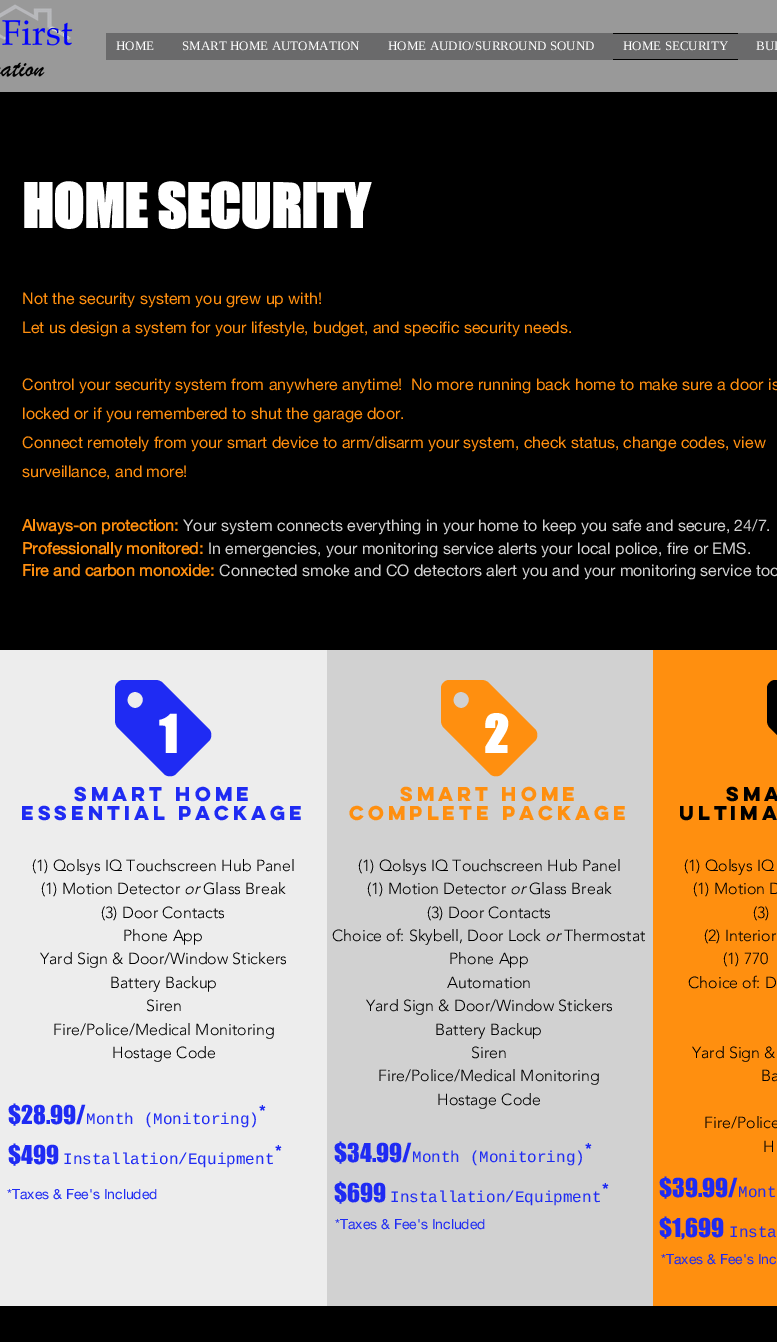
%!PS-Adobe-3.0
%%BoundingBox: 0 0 777 1342
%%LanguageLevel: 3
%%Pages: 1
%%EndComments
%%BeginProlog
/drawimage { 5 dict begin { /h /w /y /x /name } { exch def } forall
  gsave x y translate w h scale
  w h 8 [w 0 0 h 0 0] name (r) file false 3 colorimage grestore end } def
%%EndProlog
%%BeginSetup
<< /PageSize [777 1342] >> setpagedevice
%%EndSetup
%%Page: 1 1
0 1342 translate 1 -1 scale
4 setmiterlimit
0 setgray
0 0 777 1342 rectfill
0.6 setgray
0 0 777 92 rectfill
(images/1.raw) 0 4 73 73 drawimage
0.416 0.416 0.42 setrgbcolor
106 33 671 27 rectfill
0 setgray
613 33 125 1 rectfill
613 59 125 1 rectfill
0.929 setgray
0 650 327 656 rectfill
0.122 0.169 0.953 setrgbcolor
newpath 156 680 moveto 123 680 lineto 119 680 115 684 115 688 curveto 115 721 lineto 115 723 116 725 117 727 curveto 164 774 lineto 167 777 173 777 176 774 curveto 209 741 lineto 212 738 212 732 209 729 curveto 162 682 lineto 160 681 158 680 156 680 curveto closepath 141 705 moveto 135 713 123 704 129 695 curveto 135 687 148 696 141 705 curveto closepath fill
0.82 setgray
327 650 326 656 rectfill
1 0.561 0.059 setrgbcolor
newpath 482 680 moveto 449 680 lineto 445 680 441 684 441 688 curveto 441 721 lineto 441 723 442 725 443 727 curveto 490 774 lineto 493 777 499 777 502 774 curveto 535 741 lineto 538 738 538 732 535 729 curveto 488 682 lineto 486 681 484 680 482 680 curveto closepath 467 705 moveto 461 713 449 704 455 695 curveto 461 687 474 696 467 705 curveto closepath fill
653 650 124 656 rectfill
0 setgray
newpath 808 680 moveto 775 680 lineto 771 680 767 684 767 688 curveto 767 721 lineto 767 723 768 725 769 727 curveto 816 774 lineto 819 777 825 777 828 774 curveto 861 741 lineto 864 738 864 732 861 729 curveto 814 682 lineto 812 681 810 680 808 680 curveto closepath 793 705 moveto 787 713 775 704 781 695 curveto 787 687 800 696 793 705 curveto closepath fill
/LiberationSerif-Regular [13 0 0 -13 0 0] selectfont
1 setgray
116 50 moveto (HOME) show
182 50 moveto (SMART HOME AUTOMATION) show
388 50 moveto (HOME AUDIO/SURROUND SOUND) show
623 50 moveto (HOME SECURITY) show
756 50 moveto (BUI) show
/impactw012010-Bold [56 0 0 -56 0 0] selectfont
22 228 moveto (HOME SECURITY) show
/helveticaneue-Regular [16 0 0 -16 0 0] selectfont
1 0.561 0.059 setrgbcolor
22 304 moveto (Not the security system you grew up with!) show
22 333 moveto (Let us design a system for your lifestyle, budget, and specific security needs.) show
22 390 moveto (Control your security system from anywhere anytime!  No more running back home to make sure a door is) show
22 419 moveto (locked or if you remembered to shut the garage door.) show
22 448 moveto (Connect remotely from your smart device to arm/disarm your system, check status, change codes, view) show
22 477 moveto (surveillance, and more!) show
/helveticaneue-Bold [16 0 0 -16 0 0] selectfont
22 531 moveto (Always-on protection:) show
/helveticaneue-Regular [16 0 0 -16 0 0] selectfont
0.82 setgray
183 531 moveto (Your system connects everything in your home to keep you safe and secure, 24/7.) show
/helveticaneue-Bold [16 0 0 -16 0 0] selectfont
1 0.561 0.059 setrgbcolor
22 554 moveto (Professionally monitored:) show
/helveticaneue-Regular [16 0 0 -16 0 0] selectfont
0.82 setgray
208 554 moveto (In emergencies, your monitoring service alerts your local police, fire or EMS.) show
/helveticaneue-Bold [16 0 0 -16 0 0] selectfont
1 0.561 0.059 setrgbcolor
22 576 moveto (Fire and carbon monoxide:) show
/helveticaneue-Regular [16 0 0 -16 0 0] selectfont
0.82 setgray
219 576 moveto (Connected smoke and CO detectors alert you and your monitoring service too) show
/impactw012010-Bold [48 0 0 -48 0 0] selectfont
1 setgray
159 753 moveto (1) show
/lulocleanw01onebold-Bold [18 0 0 -18 0 0] selectfont
0.122 0.169 0.953 setrgbcolor
74 801 moveto (SMART HOME) show
21 820 moveto (ESSENTIAL PACKAGE) show
/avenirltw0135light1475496-Light [16 0 0 -16 0 0] selectfont
0 setgray
32 871 moveto (\(1\) Qolsys IQ Touchscreen Hub Panel) show
41 894 moveto (\(1\) Motion Detector) show
/avenirltw0135light1475496-LightItalic [16 0 0 -16 0 0] selectfont
184 894 moveto (or) show
/avenirltw0135light1475496-Light [16 0 0 -16 0 0] selectfont
203 894 moveto (Glass Break) show
101 918 moveto (\(3\) Door Contacts) show
123 941 moveto (Phone App) show
40 964 moveto (Yard Sign & Door/Window Stickers) show
110 988 moveto (Battery Backup) show
146 1011 moveto (Siren) show
53 1035 moveto (Fire/Police/Medical Monitoring) show
112 1058 moveto (Hostage Code) show
/impactw012010-Regular [24 0 0 -24 0 0] selectfont
0.122 0.169 0.953 setrgbcolor
8 1124 moveto ($28.99/) show
259 1124 moveto (*) show
/LiberationMono-Regular [16 0 0 -16 0 0] selectfont
86 1124 moveto (Month \(Monitoring\)) show
/impactw012010-Regular [24 0 0 -24 0 0] selectfont
8 1164 moveto ($499) show
275 1164 moveto (*) show
/LiberationMono-Regular [16 0 0 -16 0 0] selectfont
63 1164 moveto (Installation/Equipment) show
/helveticaneue-Regular [14 0 0 -14 0 0] selectfont
7 1199 moveto (*Taxes & Fee's Included) show
/impactw012010-Bold [48 0 0 -48 0 0] selectfont
1 setgray
484 753 moveto (2) show
/lulocleanw01onebold-Bold [18 0 0 -18 0 0] selectfont
1 0.561 0.059 setrgbcolor
400 801 moveto (SMART HOME) show
349 820 moveto (Complete PACKAGE) show
/avenirltw0135light1475496-Light [16 0 0 -16 0 0] selectfont
0 setgray
358 871 moveto (\(1\) Qolsys IQ Touchscreen Hub Panel) show
367 894 moveto (\(1\) Motion Detector) show
/avenirltw0135light1475496-LightItalic [16 0 0 -16 0 0] selectfont
510 894 moveto (or) show
/avenirltw0135light1475496-Light [16 0 0 -16 0 0] selectfont
529 894 moveto (Glass Break) show
427 918 moveto (\(3\) Door Contacts) show
332 941 moveto (Choice of: Skybell, Door Lock) show
/avenirltw0135light1475496-LightItalic [16 0 0 -16 0 0] selectfont
545 941 moveto (or) show
/avenirltw0135light1475496-Light [16 0 0 -16 0 0] selectfont
564 941 moveto (Thermostat) show
449 964 moveto (Phone App) show
447 988 moveto (Automation) show
366 1011 moveto (Yard Sign & Door/Window Stickers) show
435 1035 moveto (Battery Backup) show
471 1058 moveto (Siren) show
378 1081 moveto (Fire/Police/Medical Monitoring) show
437 1105 moveto (Hostage Code) show
/impactw012010-Regular [24 0 0 -24 0 0] selectfont
0.122 0.169 0.953 setrgbcolor
334 1162 moveto ($34.99/) show
585 1162 moveto (*) show
/LiberationMono-Regular [16 0 0 -16 0 0] selectfont
412 1162 moveto (Month \(Monitoring\)) show
/impactw012010-Regular [24 0 0 -24 0 0] selectfont
334 1202 moveto ($699) show
602 1202 moveto (*) show
/LiberationMono-Regular [16 0 0 -16 0 0] selectfont
390 1202 moveto (Installation/Equipment) show
/helveticaneue-Regular [14 0 0 -14 0 0] selectfont
335 1229 moveto (*Taxes & Fee's Included) show
/lulocleanw01onebold-Bold [18 0 0 -18 0 0] selectfont
0 setgray
726 801 moveto (SMA) show
679 820 moveto (ULTIMA) show
/avenirltw0135light1475496-Light [16 0 0 -16 0 0] selectfont
684 871 moveto (\(1\) Qolsys IQ) show
693 894 moveto (\(1\) Motion D) show
753 918 moveto (\(3\)) show
704 941 moveto (\(2\) Interior) show
723 964 moveto (\(1\) 770) show
688 988 moveto (Choice of: D) show
692 1058 moveto (Yard Sign &) show
761 1081 moveto (Ba) show
704 1128 moveto (Fire/Police) show
763 1152 moveto (H) show
/impactw012010-Regular [24 0 0 -24 0 0] selectfont
0.122 0.169 0.953 setrgbcolor
659 1197 moveto ($39.99/) show
/LiberationMono-Regular [16 0 0 -16 0 0] selectfont
738 1197 moveto (Mont) show
/impactw012010-Regular [24 0 0 -24 0 0] selectfont
659 1237 moveto ($1,699) show
/LiberationMono-Regular [16 0 0 -16 0 0] selectfont
729 1237 moveto (Insta) show
/helveticaneue-Regular [14 0 0 -14 0 0] selectfont
661 1264 moveto (*Taxes & Fee's Inc) show
showpage
%%EOF
